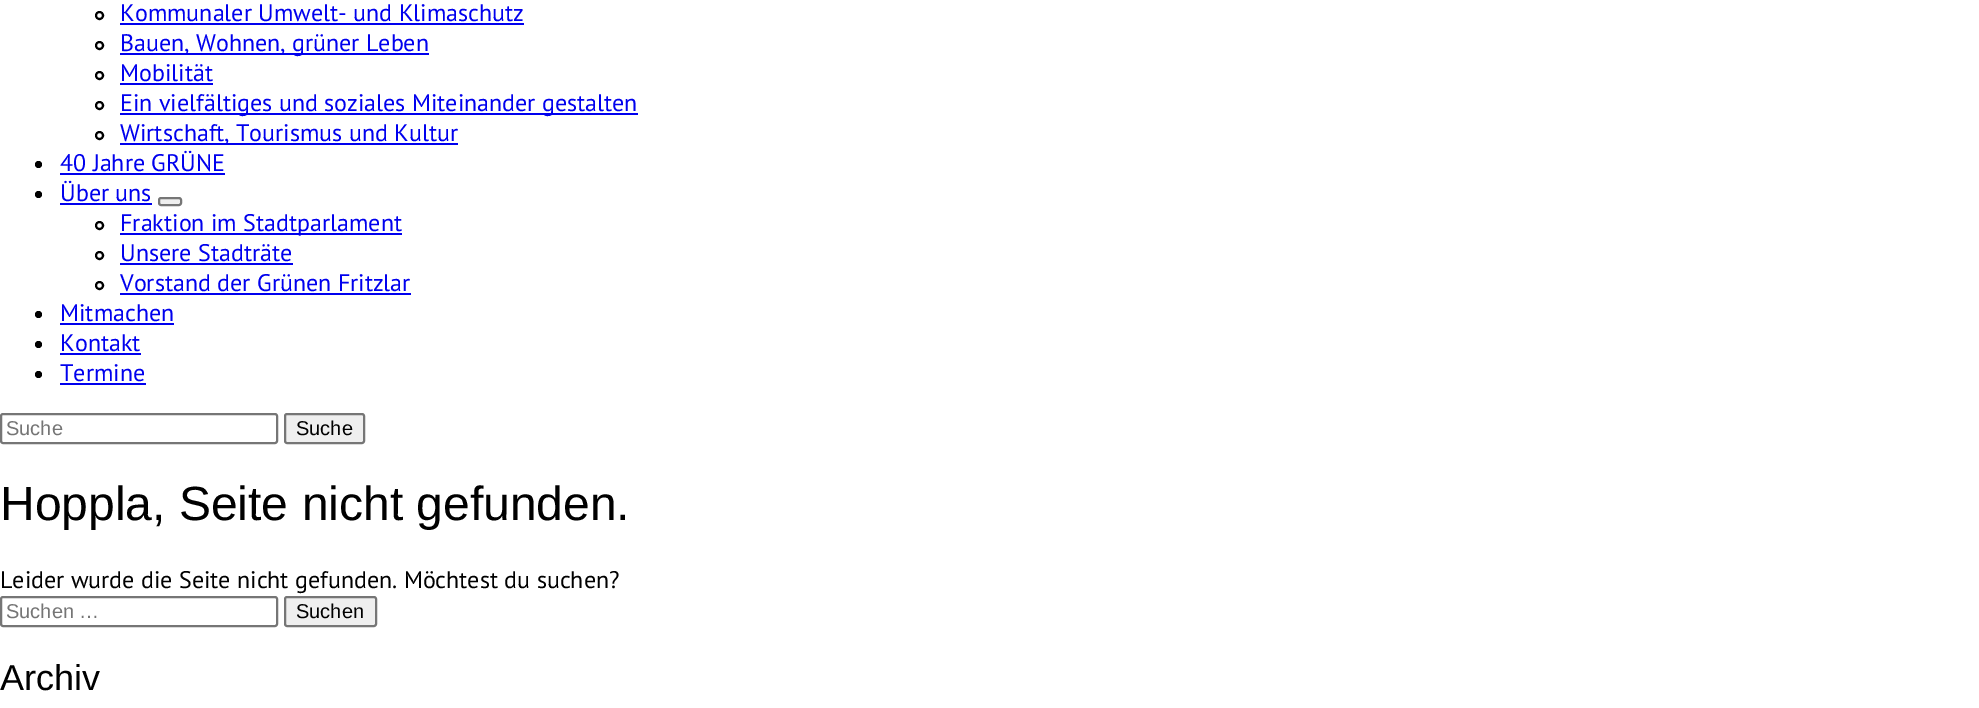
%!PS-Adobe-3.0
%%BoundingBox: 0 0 1979 708
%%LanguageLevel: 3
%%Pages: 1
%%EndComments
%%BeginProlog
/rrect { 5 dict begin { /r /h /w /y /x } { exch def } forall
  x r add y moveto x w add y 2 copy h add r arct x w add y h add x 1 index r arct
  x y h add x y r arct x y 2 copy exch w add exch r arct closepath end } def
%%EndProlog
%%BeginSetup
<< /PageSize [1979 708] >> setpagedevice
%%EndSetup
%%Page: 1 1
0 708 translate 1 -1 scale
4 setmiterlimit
1 setgray
0 0 1979 708 rectfill
0 setgray
2 setlinewidth
newpath 99.5 15.5 3.5 0 360 arc closepath stroke
0 0 0.933 setrgbcolor
120 23 404 2 rectfill
0 setgray
newpath 99.5 45.5 3.5 0 360 arc closepath stroke
0 0 0.933 setrgbcolor
120 53 309 2 rectfill
0 setgray
newpath 99.5 75.5 3.5 0 360 arc closepath stroke
0 0 0.933 setrgbcolor
120 83 93 2 rectfill
0 setgray
newpath 99.5 105.5 3.5 0 360 arc closepath stroke
0 0 0.933 setrgbcolor
120 113 518 2 rectfill
0 setgray
newpath 99.5 135.5 3.5 0 360 arc closepath stroke
0 0 0.933 setrgbcolor
120 143 338 2 rectfill
0 setgray
newpath 38.5 164.5 3.5 0 360 arc closepath fill
0 0 0.933 setrgbcolor
60 173 165 2 rectfill
0 setgray
newpath 38.5 194.5 3.5 0 360 arc closepath fill
0 0 0.933 setrgbcolor
60 203 92 2 rectfill
0.937 setgray
159 198 22 7 2 rrect gsave fill grestore
0.463 setgray
stroke
0 setgray
newpath 99.5 225.5 3.5 0 360 arc closepath stroke
0 0 0.933 setrgbcolor
120 233 282 2 rectfill
0 setgray
newpath 99.5 255.5 3.5 0 360 arc closepath stroke
0 0 0.933 setrgbcolor
120 263 173 2 rectfill
0 setgray
newpath 99.5 285.5 3.5 0 360 arc closepath stroke
0 0 0.933 setrgbcolor
120 293 291 2 rectfill
0 setgray
newpath 38.5 314.5 3.5 0 360 arc closepath fill
0 0 0.933 setrgbcolor
60 323 114 2 rectfill
0 setgray
newpath 38.5 344.5 3.5 0 360 arc closepath fill
0 0 0.933 setrgbcolor
60 353 81 2 rectfill
0 setgray
newpath 38.5 374.5 3.5 0 360 arc closepath fill
0 0 0.933 setrgbcolor
60 383 86 2 rectfill
0.463 setgray
1 414 276 29 2 rrect stroke
0.937 setgray
285 414 79 29 2 rrect gsave fill grestore
0.463 setgray
stroke
1 597 276 29 2 rrect stroke
0.937 setgray
285 597 91 29 2 rrect gsave fill grestore
0.463 setgray
stroke
/PTSans-Regular [24 0 0 -24 0 0] selectfont
0 0 0.933 setrgbcolor
120 21 moveto (Kommunaler Umwelt- und Klimaschutz) show
120 51 moveto (Bauen, Wohnen, grüner Leben) show
120 81 moveto (Mobilität) show
120 111 moveto (Ein vielfältiges und soziales Miteinander gestalten) show
120 141 moveto (Wirtschaft, Tourismus und Kultur) show
60 171 moveto (40 Jahre GRÜNE) show
60 201 moveto (Über uns) show
120 231 moveto (Fraktion im Stadtparlament) show
120 261 moveto (Unsere Stadträte) show
120 291 moveto (Vorstand der Grünen Fritzlar) show
60 321 moveto (Mitmachen) show
60 351 moveto (Kontakt) show
60 381 moveto (Termine) show
/LiberationSans-Regular [20 0 0 -20 0 0] selectfont
0.459 setgray
6 435 moveto (Suche) show
0 setgray
296 435 moveto (Suche) show
/LiberationSans-Regular [48 0 0 -48 0 0] selectfont
0 520 moveto (Hoppla, Seite nicht gefunden.) show
/PTSans-Regular [24 0 0 -24 0 0] selectfont
0 588 moveto (Leider wurde die Seite nicht gefunden. Möchtest du suchen?) show
/LiberationSans-Regular [20 0 0 -20 0 0] selectfont
0.459 setgray
6 618 moveto (Suchen …) show
0 setgray
296 618 moveto (Suchen) show
/LiberationSans-Regular [36 0 0 -36 0 0] selectfont
0 690 moveto (Archiv) show
showpage
%%EOF
